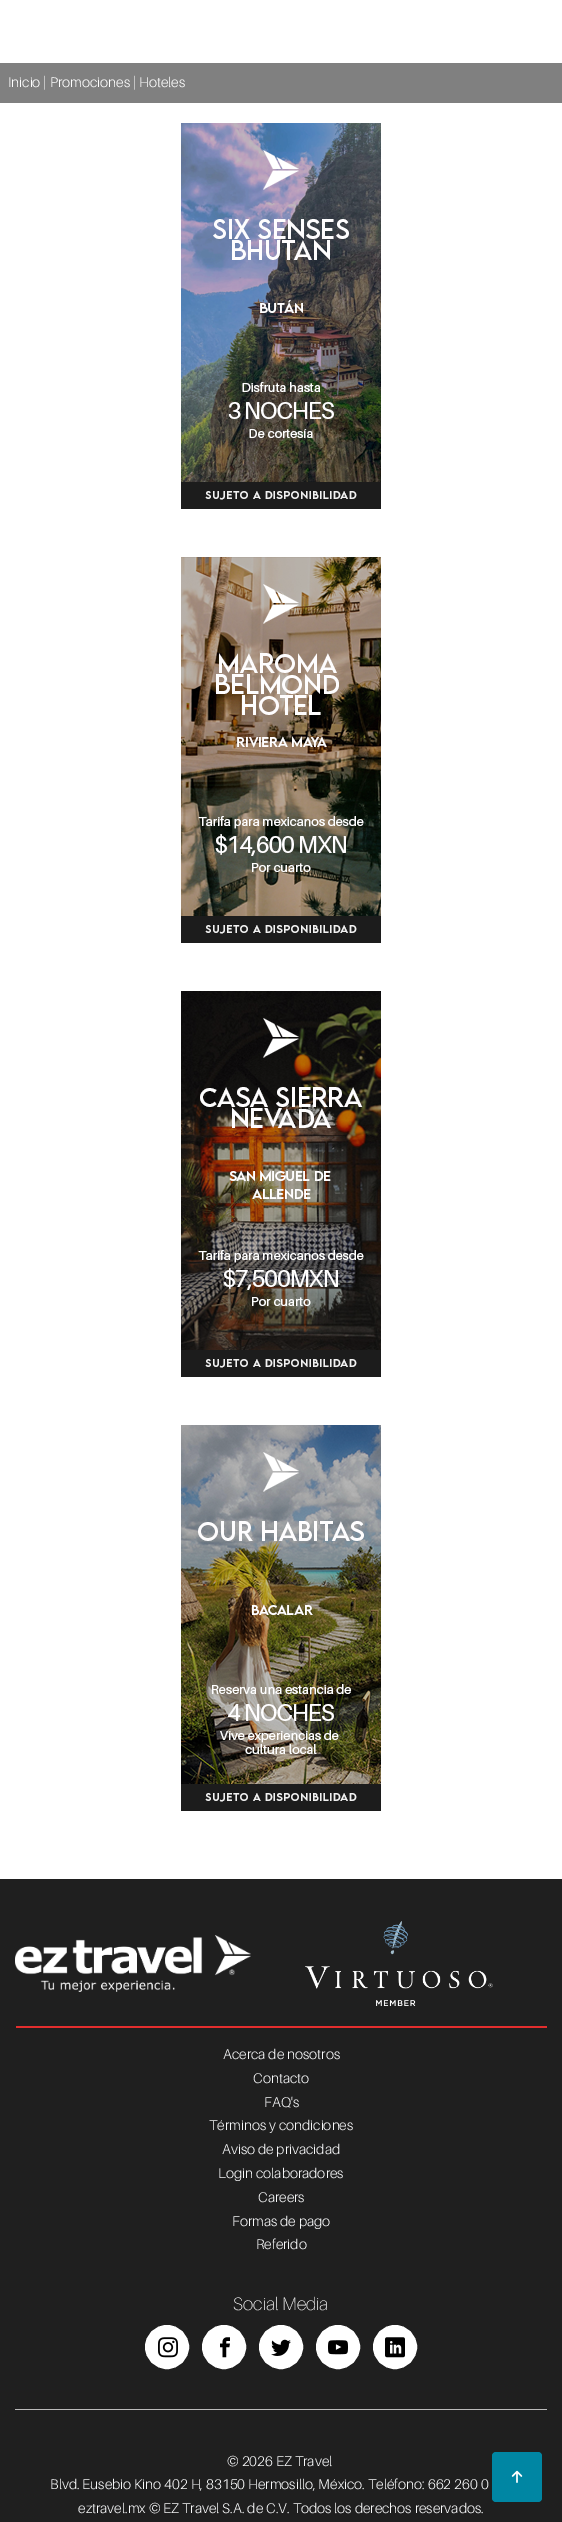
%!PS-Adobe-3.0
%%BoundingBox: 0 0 562 2522
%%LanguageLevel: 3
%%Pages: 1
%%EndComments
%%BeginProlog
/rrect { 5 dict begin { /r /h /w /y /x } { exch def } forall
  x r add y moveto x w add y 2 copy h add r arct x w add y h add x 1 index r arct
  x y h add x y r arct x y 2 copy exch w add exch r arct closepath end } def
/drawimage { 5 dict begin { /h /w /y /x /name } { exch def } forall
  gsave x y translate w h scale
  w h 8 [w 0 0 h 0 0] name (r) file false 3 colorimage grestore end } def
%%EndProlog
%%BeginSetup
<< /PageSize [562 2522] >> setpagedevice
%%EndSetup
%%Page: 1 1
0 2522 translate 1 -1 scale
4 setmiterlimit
1 setgray
0 0 562 2522 rectfill
0.502 setgray
0 63 562 40 rectfill
(images/1.raw) 181 123 200 386 drawimage
(images/2.raw) 181 557 200 386 drawimage
(images/3.raw) 181 991 200 386 drawimage
(images/4.raw) 181 1425 200 386 drawimage
0.122 setgray
0 1879 562 643 rectfill
(images/5.raw) 15 1935 236 57 drawimage
(images/6.raw) 305 1921 188 85 drawimage
0.89 0.176 0.176 setrgbcolor
16 2026 531 2 rectfill
1 setgray
newpath 167 2347 21 0 360 arc closepath gsave fill grestore
2 setlinewidth
stroke
(images/7.raw) 158 2337 20 21 drawimage
newpath 224 2347 21 0 360 arc closepath gsave fill grestore
stroke
(images/8.raw) 220 2337 10 21 drawimage
newpath 281 2347 21 0 360 arc closepath gsave fill grestore
stroke
(images/9.raw) 271 2339 20 17 drawimage
newpath 338 2347 21 0 360 arc closepath gsave fill grestore
stroke
(images/10.raw) 328 2340 20 15 drawimage
newpath 395 2347 21 0 360 arc closepath gsave fill grestore
stroke
(images/11.raw) 385 2337 20 21 drawimage
0.737 0.733 0.733 setrgbcolor
15 2409 532 1 rectfill
0 0.525 0.639 setrgbcolor
492 2452 50 50 4 rrect fill
(images/12.raw) 511 2470 12 13 drawimage
/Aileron-Light [14 0 0 -14 0 0] selectfont
1 setgray
8 87 moveto (Inicio | Promociones | Hoteles) show
0.973 0.976 0.98 setrgbcolor
223 2059 moveto (Acerca de nosotros) show
253 2083 moveto (Contacto) show
264 2107 moveto (FAQ's) show
209 2130 moveto (Términos y condiciones) show
222 2154 moveto (Aviso de privacidad) show
218 2178 moveto (Login colaboradores) show
258 2202 moveto (Careers) show
232 2226 moveto (Formas de pago) show
256 2249 moveto (Referido) show
/Aileron-Thin [18 0 0 -18 0 0] selectfont
1 setgray
233 2310 moveto (Social Media) show
/Aileron-Light [14 0 0 -14 0 0] selectfont
0.973 0.976 0.98 setrgbcolor
227 2466 moveto (© 2026 EZ Travel) show
50 2489 moveto (Blvd. Eusebio Kino 402 H, 83150 Hermosillo, México. Teléfono: 662 260 0) show
78 2513 moveto (eztravel.mx © EZ Travel S.A. de C.V. Todos los derechos reservados.) show
showpage
%%EOF
